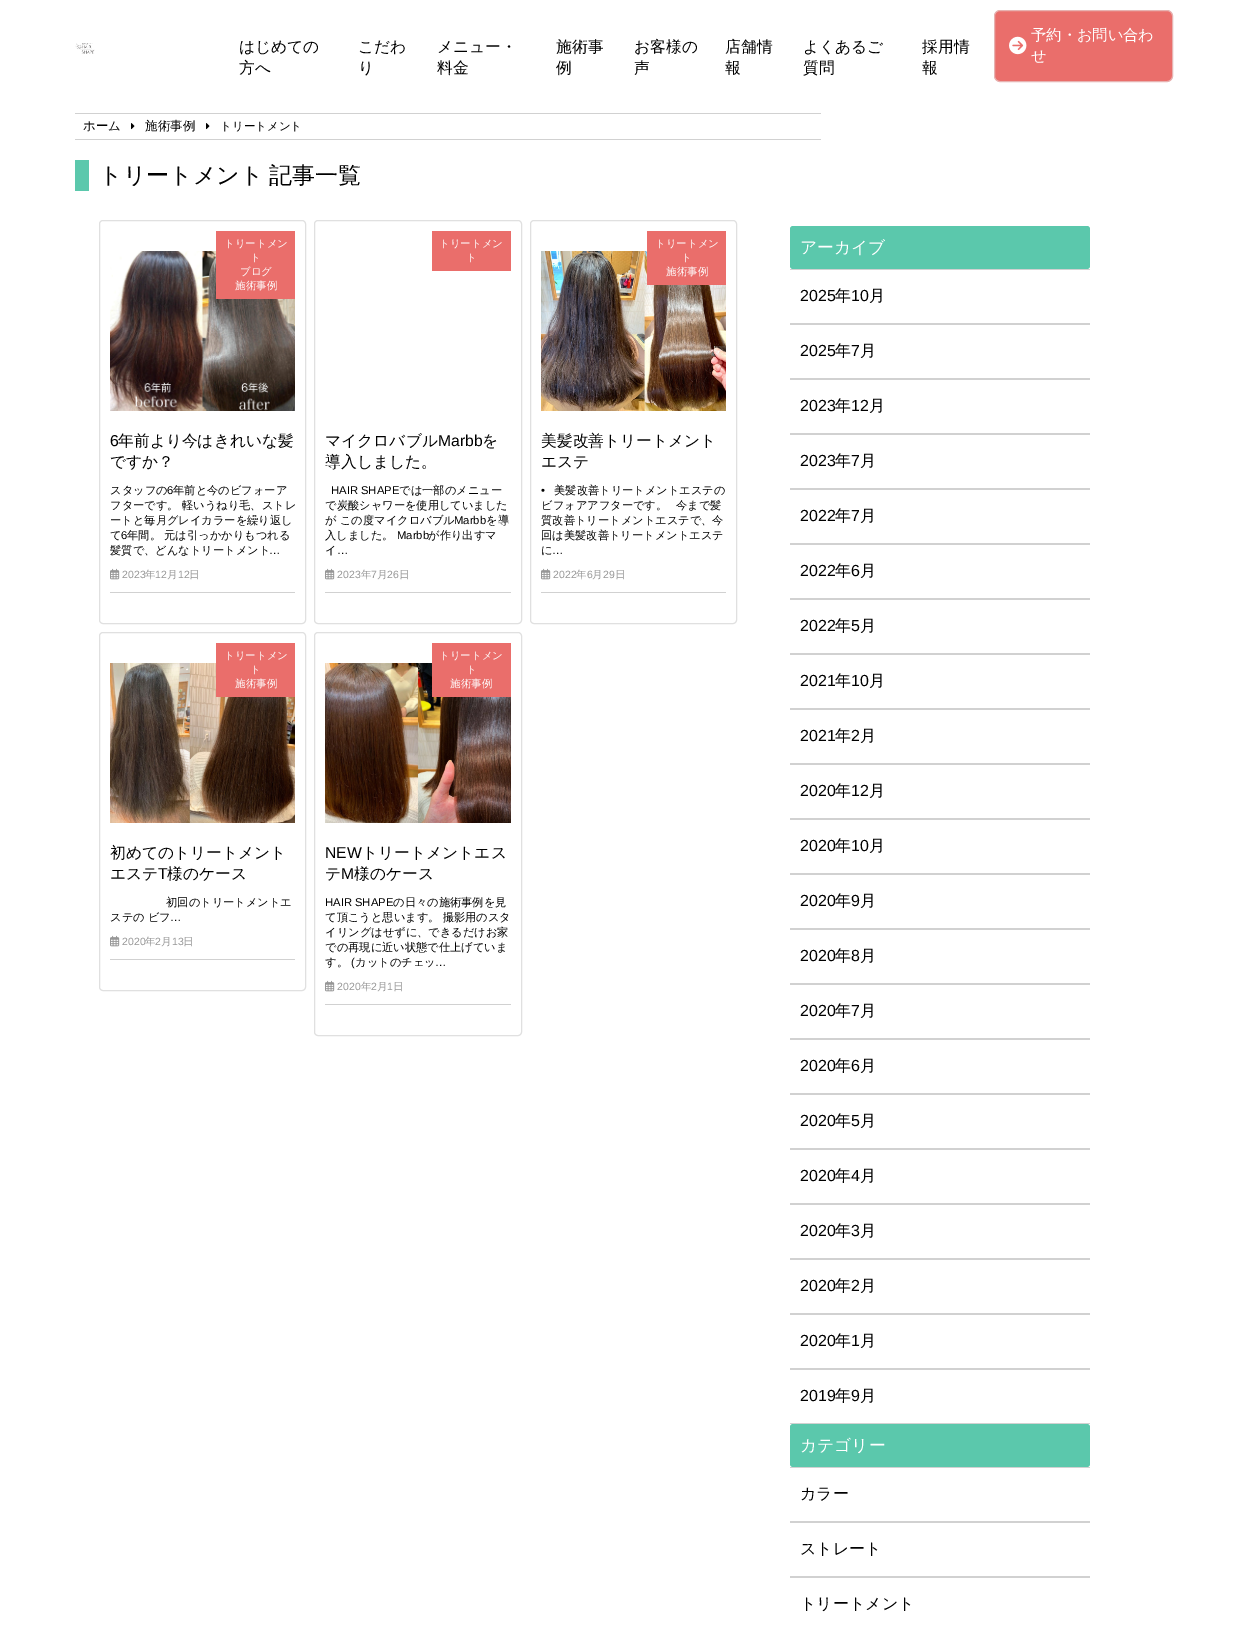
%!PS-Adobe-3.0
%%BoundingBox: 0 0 1244 1627
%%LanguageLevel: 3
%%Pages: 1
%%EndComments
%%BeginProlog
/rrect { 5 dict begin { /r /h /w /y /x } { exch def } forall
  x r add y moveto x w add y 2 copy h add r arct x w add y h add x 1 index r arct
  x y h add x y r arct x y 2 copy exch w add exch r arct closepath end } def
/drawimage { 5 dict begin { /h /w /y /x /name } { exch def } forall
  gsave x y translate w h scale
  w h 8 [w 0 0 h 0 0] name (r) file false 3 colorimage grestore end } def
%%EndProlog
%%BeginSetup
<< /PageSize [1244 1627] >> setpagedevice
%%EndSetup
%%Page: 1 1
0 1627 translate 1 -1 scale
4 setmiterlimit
1 setgray
0 0 1244 1627 rectfill
(images/1.raw) 75 43 20 11 drawimage
0.918 0.431 0.42 setrgbcolor
994.5 10.5 178 71 5.5 rrect gsave fill grestore
0.906 0.698 0.694 setrgbcolor
stroke
(images/2.raw) 1009 36 18 19 drawimage
0.82 setgray
75 113 746 1 rectfill
75 139 746 1 rectfill
(images/3.raw) 131 123 4 7 drawimage
(images/3.raw) 206 123 4 7 drawimage
0.357 0.784 0.675 setrgbcolor
75 160 14 31 rectfill
0.878 setgray
99.5 220.5 206 403 3.5 rrect stroke
(images/4.raw) 110 251 185 160 drawimage
0.918 0.431 0.42 setrgbcolor
216 231 79 68 rectfill
0.82 setgray
110 592 185 1 rectfill
(images/5.raw) 110 568 10 12 drawimage
0.878 setgray
314.5 220.5 207 403 3.5 rrect stroke
0.918 0.431 0.42 setrgbcolor
432 231 79 40 rectfill
0.82 setgray
325 592 186 1 rectfill
(images/5.raw) 325 568 10 12 drawimage
0.878 setgray
530.5 220.5 206 403 3.5 rrect stroke
(images/6.raw) 541 251 185 160 drawimage
0.918 0.431 0.42 setrgbcolor
647 231 79 54 rectfill
0.82 setgray
541 592 185 1 rectfill
(images/5.raw) 541 568 10 12 drawimage
0.878 setgray
99.5 632.5 206 358 3.5 rrect stroke
(images/7.raw) 110 663 185 160 drawimage
0.918 0.431 0.42 setrgbcolor
216 643 79 54 rectfill
0.82 setgray
110 959 185 1 rectfill
(images/5.raw) 110 935 10 12 drawimage
0.878 setgray
314.5 632.5 207 403 3.5 rrect stroke
(images/8.raw) 325 663 186 160 drawimage
0.918 0.431 0.42 setrgbcolor
432 643 79 54 rectfill
0.82 setgray
325 1004 186 1 rectfill
(images/5.raw) 325 980 10 12 drawimage
0.357 0.784 0.675 setrgbcolor
790 226 300 43 3 rrect fill
0.82 setgray
790 269 300 1 rectfill
790 323 300 2 rectfill
790 378 300 2 rectfill
790 433 300 2 rectfill
790 488 300 2 rectfill
790 543 300 2 rectfill
790 598 300 2 rectfill
790 653 300 2 rectfill
790 708 300 2 rectfill
790 763 300 2 rectfill
790 818 300 2 rectfill
790 873 300 2 rectfill
790 928 300 2 rectfill
790 983 300 2 rectfill
790 1038 300 2 rectfill
790 1093 300 2 rectfill
790 1148 300 2 rectfill
790 1203 300 2 rectfill
790 1258 300 2 rectfill
790 1313 300 2 rectfill
790 1368 300 2 rectfill
790 1423 300 1 rectfill
0.357 0.784 0.675 setrgbcolor
790 1424 300 43 3 rrect fill
0.82 setgray
790 1467 300 1 rectfill
790 1521 300 2 rectfill
790 1576 300 2 rectfill
/WenQuanYiZenHei-Medium [15.75 0 0 -15.75 0 0] selectfont
0 setgray
239 52 moveto (はじめての) show
239 73 moveto (方へ) show
358 52 moveto (こだわ) show
358 73 moveto (り) show
437 52 moveto (メニュー・) show
437 73 moveto (料金) show
556 52 moveto (施術事) show
556 73 moveto (例) show
634 52 moveto (お客様の) show
634 73 moveto (声) show
725 52 moveto (店舗情) show
725 73 moveto (報) show
803 52 moveto (よくあるご) show
803 73 moveto (質問) show
922 52 moveto (採用情) show
922 73 moveto (報) show
/WenQuanYiZenHei-Medium [15.25 0 0 -15.25 0 0] selectfont
1 setgray
1031 40 moveto (予約・お問い合わ) show
1031 61 moveto (せ) show
/WenQuanYiZenHei-Medium [12.5 0 0 -12.5 0 0] selectfont
0 setgray
83 130 moveto (ホーム) show
145 130 moveto (施術事例) show
/WenQuanYiZenHei-Medium [11.5 0 0 -11.5 0 0] selectfont
220 130 moveto (トリートメント) show
/WenQuanYiZenHei-Medium [23 0 0 -23 0 0] selectfont
99 183 moveto -1 0 32 (トリートメント 記事一覧) widthshow
/WenQuanYiZenHei-Medium [10.5 0 0 -10.5 0 0] selectfont
1 setgray
224 247 moveto (トリートメン) show
250 261 moveto (ト) show
240 275 moveto (ブログ) show
235 289 moveto (施術事例) show
/LiberationSans-Regular [15.75 0 0 -15.75 0 0] selectfont
0 setgray
110 446 moveto (6) show
/WenQuanYiZenHei-Medium [15.75 0 0 -15.75 0 0] selectfont
118 446 moveto (年前より今はきれいな髪) show
110 467 moveto (ですか？) show
/WenQuanYiZenHei-Medium [11.25 0 0 -11.25 0 0] selectfont
110 494 moveto (スタッフの) show
/LiberationSans-Regular [11.25 0 0 -11.25 0 0] selectfont
167 494 moveto (6) show
/WenQuanYiZenHei-Medium [11.25 0 0 -11.25 0 0] selectfont
173 494 moveto (年前と今のビフォーア) show
110 509 moveto (フターです。 軽いうねり毛、ストレ) show
110 524 moveto (ートと毎月グレイカラーを繰り返し) show
110 539 moveto (て) show
/LiberationSans-Regular [11.25 0 0 -11.25 0 0] selectfont
121 539 moveto (6) show
/WenQuanYiZenHei-Medium [11.25 0 0 -11.25 0 0] selectfont
127 539 moveto (年間。 元は引っかかりもつれる) show
110 554 moveto (髪質で、どんなトリートメント) show
/LiberationSans-Regular [11.25 0 0 -11.25 0 0] selectfont
269 554 moveto (…) show
/LiberationSans-Regular [10.5 0 0 -10.5 0 0] selectfont
0.588 setgray
122 578 moveto (2023) show
/WenQuanYiZenHei-Medium [10.5 0 0 -10.5 0 0] selectfont
145 578 moveto (年) show
/LiberationSans-Regular [10.5 0 0 -10.5 0 0] selectfont
155 578 moveto (12) show
/WenQuanYiZenHei-Medium [10.5 0 0 -10.5 0 0] selectfont
167 578 moveto (月) show
/LiberationSans-Regular [10.5 0 0 -10.5 0 0] selectfont
178 578 moveto (12) show
/WenQuanYiZenHei-Medium [10.5 0 0 -10.5 0 0] selectfont
189 578 moveto (日) show
1 setgray
439 247 moveto (トリートメン) show
466 261 moveto (ト) show
/WenQuanYiZenHei-Medium [15.75 0 0 -15.75 0 0] selectfont
0 setgray
325 446 moveto (マイクロバブル) show
/LiberationSans-Regular [15.75 0 0 -15.75 0 0] selectfont
438 446 moveto (Marbb) show
/WenQuanYiZenHei-Medium [15.75 0 0 -15.75 0 0] selectfont
482 446 moveto (を) show
325 467 moveto (導入しました。) show
/LiberationSans-Regular [11.25 0 0 -11.25 0 0] selectfont
331 494 moveto (HAIR SHAPE) show
/WenQuanYiZenHei-Medium [11.25 0 0 -11.25 0 0] selectfont
399 494 moveto (では一部のメニュー) show
325 509 moveto (で炭酸シャワーを使用していました) show
325 524 moveto (が この度マイクロバブル) show
/LiberationSans-Regular [11.25 0 0 -11.25 0 0] selectfont
454 524 moveto (Marbb) show
/WenQuanYiZenHei-Medium [11.25 0 0 -11.25 0 0] selectfont
486 524 moveto (を導) show
325 539 moveto (入しました。) show
/LiberationSans-Regular [11.25 0 0 -11.25 0 0] selectfont
397 539 moveto (Marbb) show
/WenQuanYiZenHei-Medium [11.25 0 0 -11.25 0 0] selectfont
428 539 moveto (が作り出すマ) show
325 554 moveto (イ) show
/LiberationSans-Regular [11.25 0 0 -11.25 0 0] selectfont
337 554 moveto (…) show
/LiberationSans-Regular [10.5 0 0 -10.5 0 0] selectfont
0.588 setgray
337 578 moveto (2023) show
/WenQuanYiZenHei-Medium [10.5 0 0 -10.5 0 0] selectfont
361 578 moveto (年) show
/LiberationSans-Regular [10.5 0 0 -10.5 0 0] selectfont
371 578 moveto (7) show
/WenQuanYiZenHei-Medium [10.5 0 0 -10.5 0 0] selectfont
377 578 moveto (月) show
/LiberationSans-Regular [10.5 0 0 -10.5 0 0] selectfont
387 578 moveto (26) show
/WenQuanYiZenHei-Medium [10.5 0 0 -10.5 0 0] selectfont
399 578 moveto (日) show
1 setgray
655 247 moveto (トリートメン) show
681 261 moveto (ト) show
666 275 moveto (施術事例) show
/WenQuanYiZenHei-Medium [15.75 0 0 -15.75 0 0] selectfont
0 setgray
541 446 moveto (美髪改善トリートメント) show
541 467 moveto (エステ) show
/LiberationSans-Regular [11.25 0 0 -11.25 0 0] selectfont
541 494 moveto (•) show
/WenQuanYiZenHei-Medium [11.25 0 0 -11.25 0 0] selectfont
554 494 moveto (美髪改善トリートメントエステの) show
541 509 moveto (ビフォアアフターです。) show
676 509 moveto (今まで髪) show
541 524 moveto (質改善トリートメントエステで、今) show
541 539 moveto (回は美髪改善トリートメントエステ) show
541 554 moveto (に) show
/LiberationSans-Regular [11.25 0 0 -11.25 0 0] selectfont
552 554 moveto (…) show
/LiberationSans-Regular [10.5 0 0 -10.5 0 0] selectfont
0.588 setgray
553 578 moveto (2022) show
/WenQuanYiZenHei-Medium [10.5 0 0 -10.5 0 0] selectfont
576 578 moveto (年) show
/LiberationSans-Regular [10.5 0 0 -10.5 0 0] selectfont
587 578 moveto (6) show
/WenQuanYiZenHei-Medium [10.5 0 0 -10.5 0 0] selectfont
592 578 moveto (月) show
/LiberationSans-Regular [10.5 0 0 -10.5 0 0] selectfont
603 578 moveto (29) show
/WenQuanYiZenHei-Medium [10.5 0 0 -10.5 0 0] selectfont
615 578 moveto (日) show
1 setgray
224 659 moveto (トリートメン) show
250 673 moveto (ト) show
235 687 moveto (施術事例) show
/WenQuanYiZenHei-Medium [15.75 0 0 -15.75 0 0] selectfont
0 setgray
110 858 moveto (初めてのトリートメント) show
110 879 moveto (エステ) show
/LiberationSans-Regular [15.75 0 0 -15.75 0 0] selectfont
158 879 moveto (T) show
/WenQuanYiZenHei-Medium [15.75 0 0 -15.75 0 0] selectfont
167 879 moveto (様のケース) show
/WenQuanYiZenHei-Medium [11.25 0 0 -11.25 0 0] selectfont
166 906 moveto (初回のトリートメントエ) show
110 921 moveto (ステの ビフ) show
/LiberationSans-Regular [11.25 0 0 -11.25 0 0] selectfont
170 921 moveto (…) show
/LiberationSans-Regular [10.5 0 0 -10.5 0 0] selectfont
0.588 setgray
122 945 moveto (2020) show
/WenQuanYiZenHei-Medium [10.5 0 0 -10.5 0 0] selectfont
145 945 moveto (年) show
/LiberationSans-Regular [10.5 0 0 -10.5 0 0] selectfont
155 945 moveto (2) show
/WenQuanYiZenHei-Medium [10.5 0 0 -10.5 0 0] selectfont
161 945 moveto (月) show
/LiberationSans-Regular [10.5 0 0 -10.5 0 0] selectfont
172 945 moveto (13) show
/WenQuanYiZenHei-Medium [10.5 0 0 -10.5 0 0] selectfont
183 945 moveto (日) show
1 setgray
439 659 moveto (トリートメン) show
466 673 moveto (ト) show
450 687 moveto (施術事例) show
/LiberationSans-Regular [15.75 0 0 -15.75 0 0] selectfont
0 setgray
325 858 moveto (NEW) show
/WenQuanYiZenHei-Medium [15.75 0 0 -15.75 0 0] selectfont
362 858 moveto (トリートメントエス) show
325 879 moveto (テ) show
/LiberationSans-Regular [15.75 0 0 -15.75 0 0] selectfont
341 879 moveto (M) show
/WenQuanYiZenHei-Medium [15.75 0 0 -15.75 0 0] selectfont
354 879 moveto (様のケース) show
/LiberationSans-Regular [11.25 0 0 -11.25 0 0] selectfont
325 906 moveto (HAIR SHAPE) show
/WenQuanYiZenHei-Medium [11.25 0 0 -11.25 0 0] selectfont
393 906 moveto (の日々の施術事例を見) show
325 921 moveto (て頂こうと思います。 撮影用のスタ) show
325 936 moveto (イリングはせずに、できるだけお家) show
325 951 moveto (での再現に近い状態で仕上げていま) show
325 966 moveto (す。) show
/LiberationSans-Regular [11.25 0 0 -11.25 0 0] selectfont
351 966 moveto (\() show
/WenQuanYiZenHei-Medium [11.25 0 0 -11.25 0 0] selectfont
355 966 moveto (カットのチェッ) show
/LiberationSans-Regular [11.25 0 0 -11.25 0 0] selectfont
435 966 moveto (…) show
/LiberationSans-Regular [10.5 0 0 -10.5 0 0] selectfont
0.588 setgray
337 990 moveto (2020) show
/WenQuanYiZenHei-Medium [10.5 0 0 -10.5 0 0] selectfont
361 990 moveto (年) show
/LiberationSans-Regular [10.5 0 0 -10.5 0 0] selectfont
371 990 moveto (2) show
/WenQuanYiZenHei-Medium [10.5 0 0 -10.5 0 0] selectfont
377 990 moveto (月) show
/LiberationSans-Regular [10.5 0 0 -10.5 0 0] selectfont
387 990 moveto (1) show
/WenQuanYiZenHei-Medium [10.5 0 0 -10.5 0 0] selectfont
393 990 moveto (日) show
/WenQuanYiZenHei-Medium [16.75 0 0 -16.75 0 0] selectfont
1 setgray
800 253 moveto (アーカイブ) show
/LiberationSans-Regular [16 0 0 -16 0 0] selectfont
0 setgray
800 301 moveto (2025) show
/WenQuanYiZenHei-Medium [16 0 0 -16 0 0] selectfont
835 301 moveto (年) show
/LiberationSans-Regular [16 0 0 -16 0 0] selectfont
851 301 moveto (10) show
/WenQuanYiZenHei-Medium [16 0 0 -16 0 0] selectfont
869 301 moveto (月) show
/LiberationSans-Regular [16 0 0 -16 0 0] selectfont
800 356 moveto (2025) show
/WenQuanYiZenHei-Medium [16 0 0 -16 0 0] selectfont
835 356 moveto (年) show
/LiberationSans-Regular [16 0 0 -16 0 0] selectfont
851 356 moveto (7) show
/WenQuanYiZenHei-Medium [16 0 0 -16 0 0] selectfont
860 356 moveto (月) show
/LiberationSans-Regular [16 0 0 -16 0 0] selectfont
800 411 moveto (2023) show
/WenQuanYiZenHei-Medium [16 0 0 -16 0 0] selectfont
835 411 moveto (年) show
/LiberationSans-Regular [16 0 0 -16 0 0] selectfont
851 411 moveto (12) show
/WenQuanYiZenHei-Medium [16 0 0 -16 0 0] selectfont
869 411 moveto (月) show
/LiberationSans-Regular [16 0 0 -16 0 0] selectfont
800 466 moveto (2023) show
/WenQuanYiZenHei-Medium [16 0 0 -16 0 0] selectfont
835 466 moveto (年) show
/LiberationSans-Regular [16 0 0 -16 0 0] selectfont
851 466 moveto (7) show
/WenQuanYiZenHei-Medium [16 0 0 -16 0 0] selectfont
860 466 moveto (月) show
/LiberationSans-Regular [16 0 0 -16 0 0] selectfont
800 521 moveto (2022) show
/WenQuanYiZenHei-Medium [16 0 0 -16 0 0] selectfont
835 521 moveto (年) show
/LiberationSans-Regular [16 0 0 -16 0 0] selectfont
851 521 moveto (7) show
/WenQuanYiZenHei-Medium [16 0 0 -16 0 0] selectfont
860 521 moveto (月) show
/LiberationSans-Regular [16 0 0 -16 0 0] selectfont
800 576 moveto (2022) show
/WenQuanYiZenHei-Medium [16 0 0 -16 0 0] selectfont
835 576 moveto (年) show
/LiberationSans-Regular [16 0 0 -16 0 0] selectfont
851 576 moveto (6) show
/WenQuanYiZenHei-Medium [16 0 0 -16 0 0] selectfont
860 576 moveto (月) show
/LiberationSans-Regular [16 0 0 -16 0 0] selectfont
800 631 moveto (2022) show
/WenQuanYiZenHei-Medium [16 0 0 -16 0 0] selectfont
835 631 moveto (年) show
/LiberationSans-Regular [16 0 0 -16 0 0] selectfont
851 631 moveto (5) show
/WenQuanYiZenHei-Medium [16 0 0 -16 0 0] selectfont
860 631 moveto (月) show
/LiberationSans-Regular [16 0 0 -16 0 0] selectfont
800 686 moveto (2021) show
/WenQuanYiZenHei-Medium [16 0 0 -16 0 0] selectfont
835 686 moveto (年) show
/LiberationSans-Regular [16 0 0 -16 0 0] selectfont
851 686 moveto (10) show
/WenQuanYiZenHei-Medium [16 0 0 -16 0 0] selectfont
869 686 moveto (月) show
/LiberationSans-Regular [16 0 0 -16 0 0] selectfont
800 741 moveto (2021) show
/WenQuanYiZenHei-Medium [16 0 0 -16 0 0] selectfont
835 741 moveto (年) show
/LiberationSans-Regular [16 0 0 -16 0 0] selectfont
851 741 moveto (2) show
/WenQuanYiZenHei-Medium [16 0 0 -16 0 0] selectfont
860 741 moveto (月) show
/LiberationSans-Regular [16 0 0 -16 0 0] selectfont
800 796 moveto (2020) show
/WenQuanYiZenHei-Medium [16 0 0 -16 0 0] selectfont
835 796 moveto (年) show
/LiberationSans-Regular [16 0 0 -16 0 0] selectfont
851 796 moveto (12) show
/WenQuanYiZenHei-Medium [16 0 0 -16 0 0] selectfont
869 796 moveto (月) show
/LiberationSans-Regular [16 0 0 -16 0 0] selectfont
800 851 moveto (2020) show
/WenQuanYiZenHei-Medium [16 0 0 -16 0 0] selectfont
835 851 moveto (年) show
/LiberationSans-Regular [16 0 0 -16 0 0] selectfont
851 851 moveto (10) show
/WenQuanYiZenHei-Medium [16 0 0 -16 0 0] selectfont
869 851 moveto (月) show
/LiberationSans-Regular [16 0 0 -16 0 0] selectfont
800 906 moveto (2020) show
/WenQuanYiZenHei-Medium [16 0 0 -16 0 0] selectfont
835 906 moveto (年) show
/LiberationSans-Regular [16 0 0 -16 0 0] selectfont
851 906 moveto (9) show
/WenQuanYiZenHei-Medium [16 0 0 -16 0 0] selectfont
860 906 moveto (月) show
/LiberationSans-Regular [16 0 0 -16 0 0] selectfont
800 961 moveto (2020) show
/WenQuanYiZenHei-Medium [16 0 0 -16 0 0] selectfont
835 961 moveto (年) show
/LiberationSans-Regular [16 0 0 -16 0 0] selectfont
851 961 moveto (8) show
/WenQuanYiZenHei-Medium [16 0 0 -16 0 0] selectfont
860 961 moveto (月) show
/LiberationSans-Regular [16 0 0 -16 0 0] selectfont
800 1016 moveto (2020) show
/WenQuanYiZenHei-Medium [16 0 0 -16 0 0] selectfont
835 1016 moveto (年) show
/LiberationSans-Regular [16 0 0 -16 0 0] selectfont
851 1016 moveto (7) show
/WenQuanYiZenHei-Medium [16 0 0 -16 0 0] selectfont
860 1016 moveto (月) show
/LiberationSans-Regular [16 0 0 -16 0 0] selectfont
800 1071 moveto (2020) show
/WenQuanYiZenHei-Medium [16 0 0 -16 0 0] selectfont
835 1071 moveto (年) show
/LiberationSans-Regular [16 0 0 -16 0 0] selectfont
851 1071 moveto (6) show
/WenQuanYiZenHei-Medium [16 0 0 -16 0 0] selectfont
860 1071 moveto (月) show
/LiberationSans-Regular [16 0 0 -16 0 0] selectfont
800 1126 moveto (2020) show
/WenQuanYiZenHei-Medium [16 0 0 -16 0 0] selectfont
835 1126 moveto (年) show
/LiberationSans-Regular [16 0 0 -16 0 0] selectfont
851 1126 moveto (5) show
/WenQuanYiZenHei-Medium [16 0 0 -16 0 0] selectfont
860 1126 moveto (月) show
/LiberationSans-Regular [16 0 0 -16 0 0] selectfont
800 1181 moveto (2020) show
/WenQuanYiZenHei-Medium [16 0 0 -16 0 0] selectfont
835 1181 moveto (年) show
/LiberationSans-Regular [16 0 0 -16 0 0] selectfont
851 1181 moveto (4) show
/WenQuanYiZenHei-Medium [16 0 0 -16 0 0] selectfont
860 1181 moveto (月) show
/LiberationSans-Regular [16 0 0 -16 0 0] selectfont
800 1236 moveto (2020) show
/WenQuanYiZenHei-Medium [16 0 0 -16 0 0] selectfont
835 1236 moveto (年) show
/LiberationSans-Regular [16 0 0 -16 0 0] selectfont
851 1236 moveto (3) show
/WenQuanYiZenHei-Medium [16 0 0 -16 0 0] selectfont
860 1236 moveto (月) show
/LiberationSans-Regular [16 0 0 -16 0 0] selectfont
800 1291 moveto (2020) show
/WenQuanYiZenHei-Medium [16 0 0 -16 0 0] selectfont
835 1291 moveto (年) show
/LiberationSans-Regular [16 0 0 -16 0 0] selectfont
851 1291 moveto (2) show
/WenQuanYiZenHei-Medium [16 0 0 -16 0 0] selectfont
860 1291 moveto (月) show
/LiberationSans-Regular [16 0 0 -16 0 0] selectfont
800 1346 moveto (2020) show
/WenQuanYiZenHei-Medium [16 0 0 -16 0 0] selectfont
835 1346 moveto (年) show
/LiberationSans-Regular [16 0 0 -16 0 0] selectfont
851 1346 moveto (1) show
/WenQuanYiZenHei-Medium [16 0 0 -16 0 0] selectfont
860 1346 moveto (月) show
/LiberationSans-Regular [16 0 0 -16 0 0] selectfont
800 1401 moveto (2019) show
/WenQuanYiZenHei-Medium [16 0 0 -16 0 0] selectfont
835 1401 moveto (年) show
/LiberationSans-Regular [16 0 0 -16 0 0] selectfont
851 1401 moveto (9) show
/WenQuanYiZenHei-Medium [16 0 0 -16 0 0] selectfont
860 1401 moveto (月) show
/WenQuanYiZenHei-Medium [16.75 0 0 -16.75 0 0] selectfont
1 setgray
800 1451 moveto (カテゴリー) show
/WenQuanYiZenHei-Medium [16 0 0 -16 0 0] selectfont
0 setgray
800 1499 moveto (カラー) show
800 1554 moveto (ストレート) show
800 1609 moveto (トリートメント) show
showpage
%%EOF
